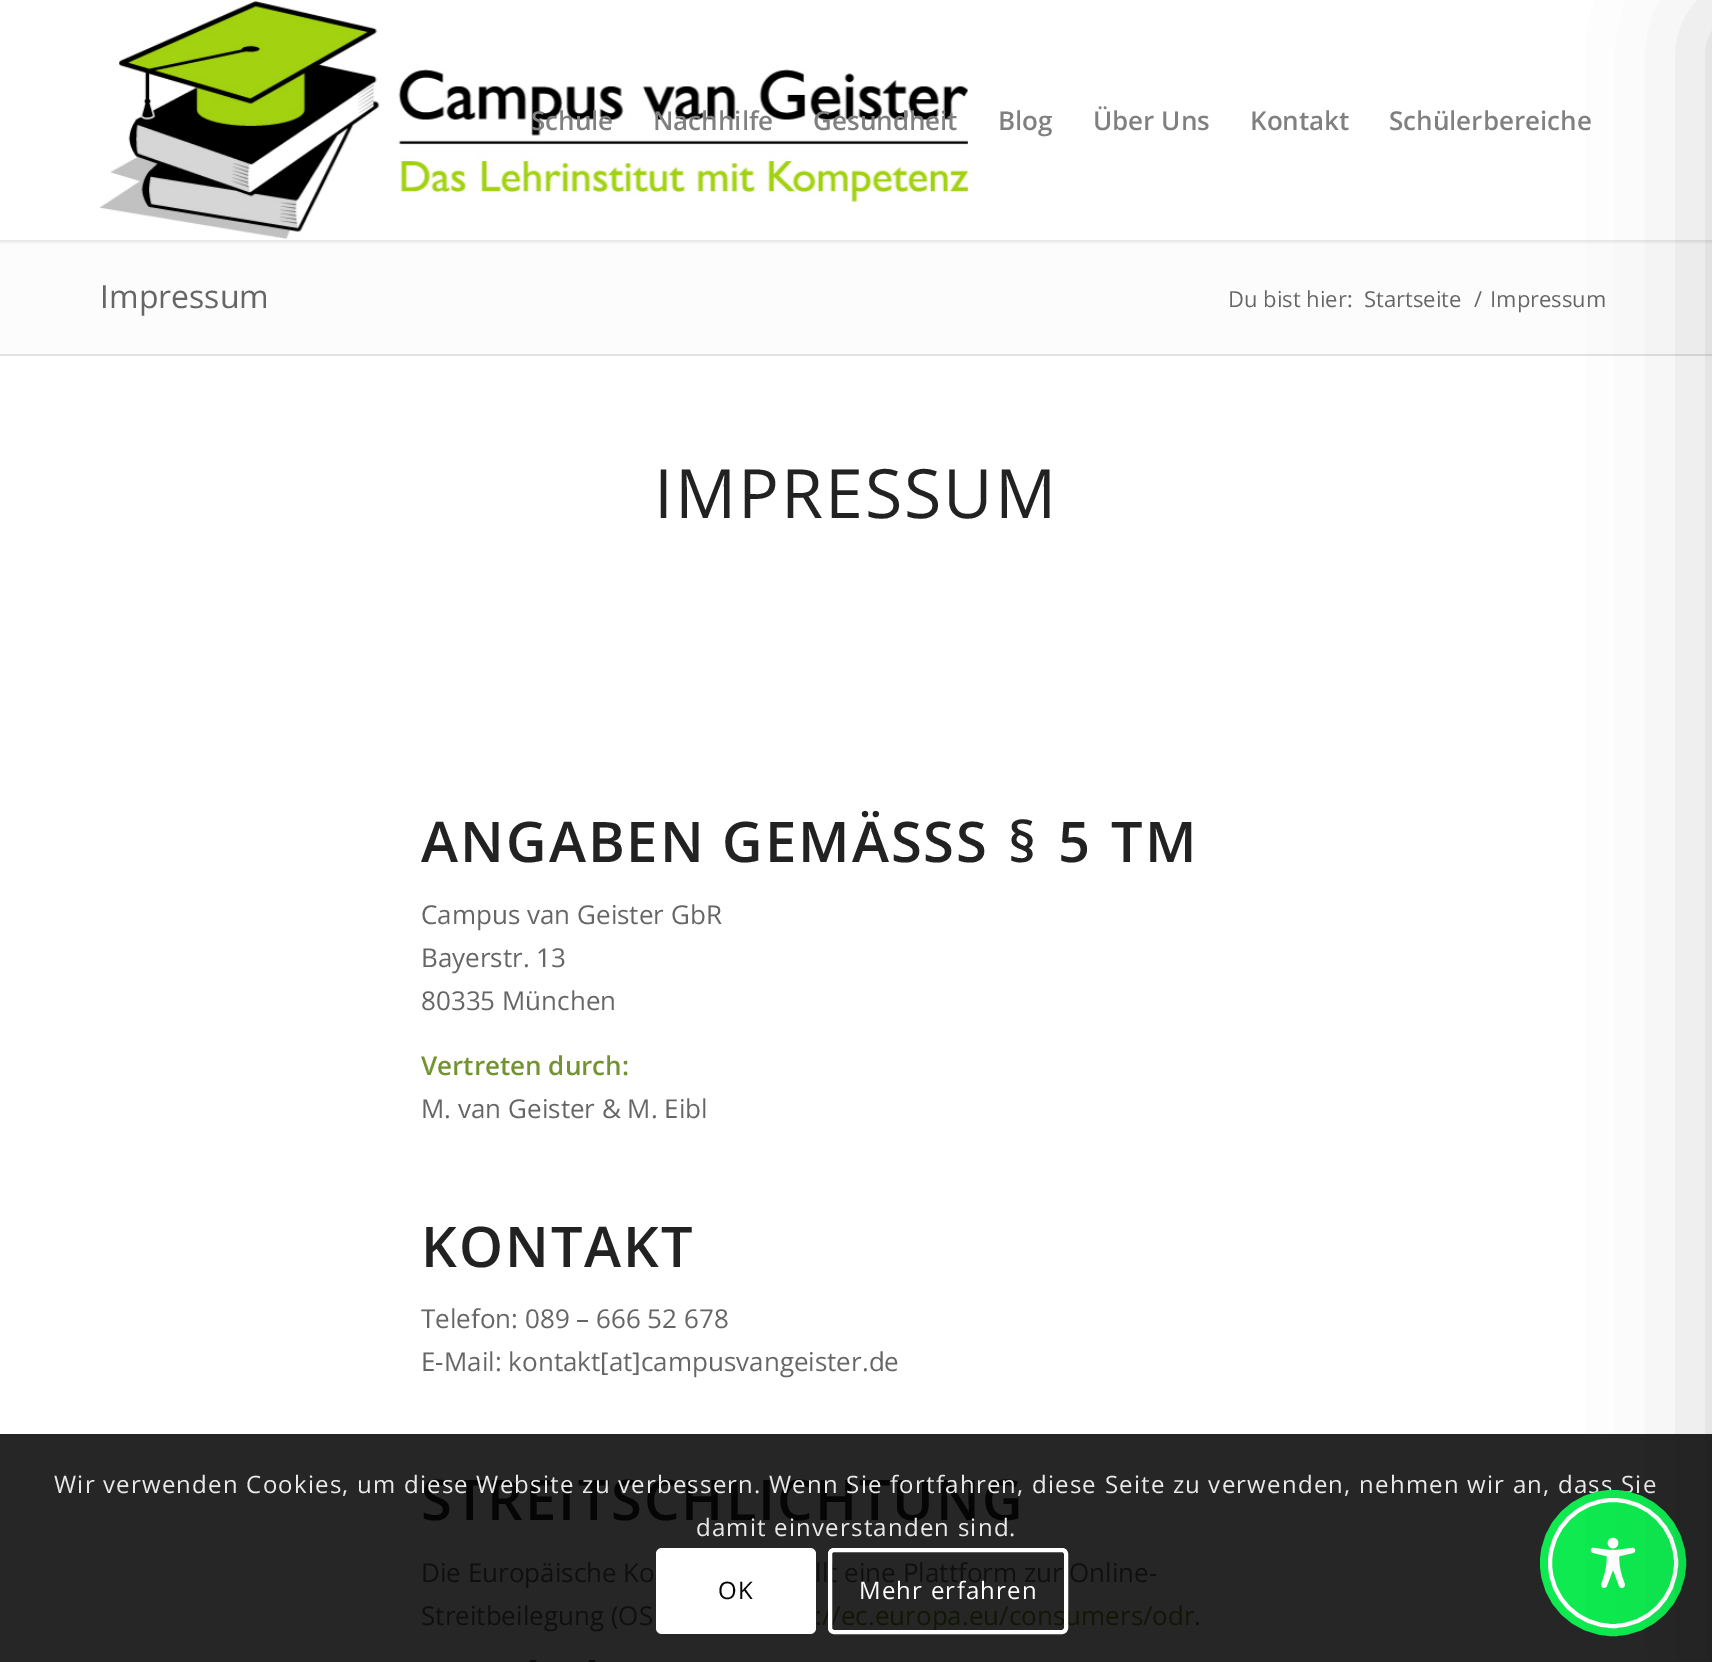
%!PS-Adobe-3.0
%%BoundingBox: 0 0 1712 1662
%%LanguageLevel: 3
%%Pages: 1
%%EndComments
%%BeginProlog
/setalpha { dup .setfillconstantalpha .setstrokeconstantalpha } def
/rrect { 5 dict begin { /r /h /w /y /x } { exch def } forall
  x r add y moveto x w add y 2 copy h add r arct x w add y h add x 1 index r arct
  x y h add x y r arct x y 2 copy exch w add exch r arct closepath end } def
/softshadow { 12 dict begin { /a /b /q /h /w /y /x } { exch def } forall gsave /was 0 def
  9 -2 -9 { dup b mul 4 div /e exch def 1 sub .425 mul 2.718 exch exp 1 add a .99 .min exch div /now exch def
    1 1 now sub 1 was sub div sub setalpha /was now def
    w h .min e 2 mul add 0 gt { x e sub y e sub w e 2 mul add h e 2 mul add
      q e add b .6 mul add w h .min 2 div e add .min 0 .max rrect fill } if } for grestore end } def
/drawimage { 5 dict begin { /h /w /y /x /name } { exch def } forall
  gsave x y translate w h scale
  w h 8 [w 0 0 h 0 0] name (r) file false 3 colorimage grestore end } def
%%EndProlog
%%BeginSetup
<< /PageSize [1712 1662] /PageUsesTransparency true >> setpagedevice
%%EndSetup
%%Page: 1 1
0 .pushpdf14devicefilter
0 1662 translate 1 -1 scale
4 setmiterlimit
1 setgray
0 0 1712 1662 rectfill
0.149 setgray
0 1434 1712 228 rectfill
0.988 setgray
0 240 1712 114 rectfill
gsave
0 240 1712 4 rectclip
0 setgray
-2 -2 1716 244 0 2 0.1 softshadow
grestore
(images/1.raw) 100 1 868 238 drawimage
0.882 setgray
0 354 1712 2 rectfill
1 setgray
656 1548 160 86 6 rrect fill
/OpenSans-SemiBold [26 0 0 -26 0 0] selectfont
0.502 setgray
531 130 moveto (Schule) show
653 130 moveto (Nachhilfe) show
813 130 moveto (Gesundheit) show
998 130 moveto (Blog) show
1093 130 moveto (Über Uns) show
1250 130 moveto (Kontakt) show
1389 130 moveto (Schülerbereiche) show
/OpenSans-Regular [32 0 0 -32 0 0] selectfont
0.4 setgray
100 308 moveto (Impressum) show
/OpenSans-Regular [22 0 0 -22 0 0] selectfont
1228 307 moveto (Du bist hier:) show
1364 307 moveto (Startseite) show
1474 307 moveto (/) show
1490 307 moveto (Impressum) show
/OpenSans-Regular [68 0 0 -68 0 0] selectfont
0.133 setgray
654 518 moveto 2 0 (IMPRESSUM) ashow
/OpenSans-SemiBold [56 0 0 -56 0 0] selectfont
421 862 moveto 2 0 (ANGABEN GEMÄSS) ashow
956 862 moveto 3 0 32 2 0 (S § 5 TM) awidthshow
/OpenSans-Regular [26 0 0 -26 0 0] selectfont
0.4 setgray
421 924 moveto (Campus van Geister GbR) show
421 967 moveto (Bayerstr. 13) show
421 1010 moveto (80335 München) show
/OpenSans-SemiBold [26 0 0 -26 0 0] selectfont
0.443 0.58 0.188 setrgbcolor
421 1075 moveto (Vertreten durch:) show
/OpenSans-Regular [26 0 0 -26 0 0] selectfont
0.4 setgray
421 1118 moveto (M. van Geister & M. Eibl) show
/OpenSans-SemiBold [56 0 0 -56 0 0] selectfont
0.133 setgray
421 1267 moveto 2 0 (KONTAKT) ashow
/OpenSans-Regular [26 0 0 -26 0 0] selectfont
0.4 setgray
421 1328 moveto (Telefon: 089 – 666 52 678) show
421 1371 moveto (E-Mail: kontakt[at]campusvangeister.de) show
/OpenSans-SemiBold [56 0 0 -56 0 0] selectfont
0.02 setgray
421 1520 moveto 2 0 (STREITSCHLICHTUNG) ashow
/OpenSans-Regular [26 0 0 -26 0 0] selectfont
0.059 setgray
421 1582 moveto (Die Europäische Ko) show
815 1582 moveto (llt eine Plattform zur Online-) show
421 1625 moveto (Streitbeilegung \(OS) show
0.067 0.086 0.027 setrgbcolor
815 1625 moveto (://ec.europa.eu/consumers/odr) show
0.059 setgray
1194 1625 moveto (.) show
529 1668 moveto (-) show
588 1668 moveto (-) show
/OpenSans-Regular [24 0 0 -24 0 0] selectfont
0.914 setgray
54 1493 moveto 1.2 0 (Wir verwenden Cookies, um diese Website zu verbessern. Wenn Sie fortfahren, diese Seite zu verwenden, nehmen wir an, dass Sie) ashow
696 1536 moveto 1.2 0 (damit einverstanden sind.) ashow
0.02 setgray
718 1599 moveto 1.2 0 (OK) ashow
1 setgray
4 setlinewidth
830 1550 236 82 4 rrect stroke
859 1599 moveto 1.2 0 (Mehr erfahren) ashow
0.055 0.918 0.314 setrgbcolor
8 setlinewidth
newpath 1613 1563 69 0 360 arc closepath stroke
newpath 1613 1563 63 0 360 arc closepath gsave fill grestore
1 setgray
4 setlinewidth
stroke
(images/2.raw) 1590 1537 46 52 drawimage
0 setgray
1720 20 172 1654 0 60 0.2 softshadow
.poppdf14devicefilter showpage
%%EOF
